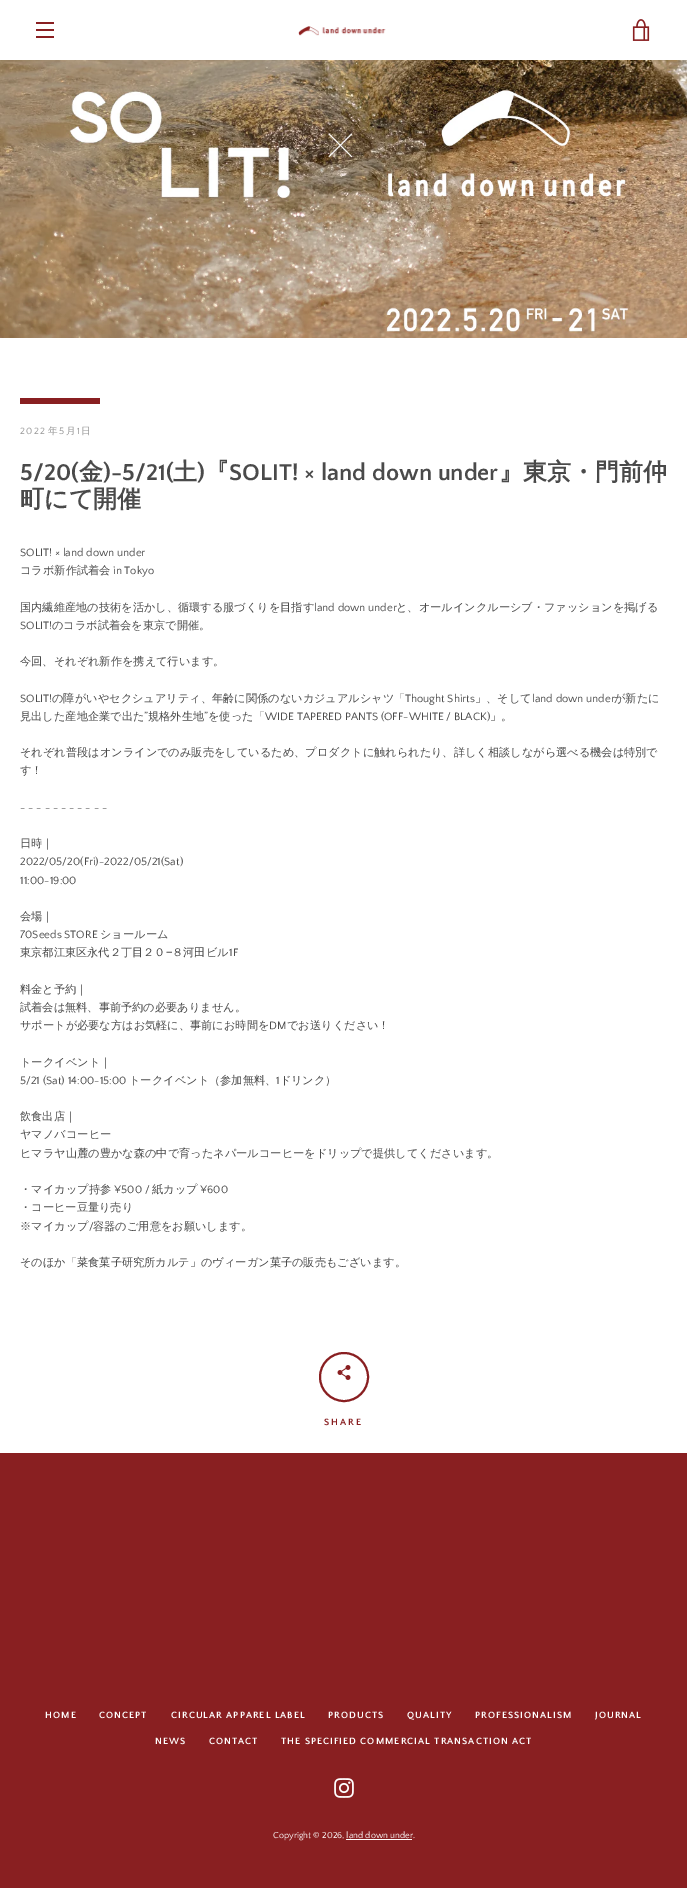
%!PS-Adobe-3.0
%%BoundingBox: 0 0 687 1888
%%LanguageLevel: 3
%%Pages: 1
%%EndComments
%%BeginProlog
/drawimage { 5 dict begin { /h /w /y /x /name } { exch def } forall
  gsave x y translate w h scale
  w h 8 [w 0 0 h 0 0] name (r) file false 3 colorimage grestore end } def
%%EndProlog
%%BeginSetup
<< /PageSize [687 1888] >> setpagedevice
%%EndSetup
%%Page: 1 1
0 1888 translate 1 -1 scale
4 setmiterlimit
0.537 0.122 0.129 setrgbcolor
0 0 687 1888 rectfill
1 setgray
0 0 687 1453 rectfill
0.537 0.122 0.129 setrgbcolor
36 22 18 2 rectfill
36 29 18 2 rectfill
36 36 18 2 rectfill
(images/1.raw) 298 26 88 10 drawimage
(images/2.raw) 632 19 18 22 drawimage
(images/3.raw) 0 60 687 278 drawimage
20 398 80 6 rectfill
2 setlinewidth
newpath 344 1377 24 0 360 arc closepath stroke
(images/4.raw) 337 1365 14 15 drawimage
(images/5.raw) 334 1778 20 20 drawimage
1 setgray
346 1839 66 1 rectfill
/QuattrocentoSans-Regular [9.6 0 0 -9.6 0 0] selectfont
0.592 setgray
20 434 moveto 1.5 0 (2022) ashow
/WenQuanYiZenHei-Medium [9.6 0 0 -9.6 0 0] selectfont
48 434 moveto 1.5 0 (年) ashow
/QuattrocentoSans-Regular [9.6 0 0 -9.6 0 0] selectfont
59 434 moveto 1.5 0 (5) ashow
/WenQuanYiZenHei-Medium [9.6 0 0 -9.6 0 0] selectfont
66 434 moveto 1.5 0 (月 日) ashow
/QuattrocentoSans-Regular [9.6 0 0 -9.6 0 0] selectfont
77 434 moveto 1.5 0 (1) ashow
/QuattrocentoSans-Bold [24 0 0 -24 0 0] selectfont
0.29 setgray
20 480 moveto (5/20\() show
/WenQuanYiZenHei-Bold [24 0 0 -24 0 0] selectfont
79 480 moveto (金) show
/QuattrocentoSans-Bold [24 0 0 -24 0 0] selectfont
103 480 moveto (\)-5/21\() show
/WenQuanYiZenHei-Bold [24 0 0 -24 0 0] selectfont
173 480 moveto (土) show
/QuattrocentoSans-Bold [24 0 0 -24 0 0] selectfont
197 480 moveto (\)) show
/WenQuanYiZenHei-Bold [24 0 0 -24 0 0] selectfont
205 480 moveto (『) show
/QuattrocentoSans-Bold [24 0 0 -24 0 0] selectfont
229 480 moveto (SOLIT! × land down under) show
/WenQuanYiZenHei-Bold [24 0 0 -24 0 0] selectfont
499 480 moveto (』東京・門前仲) show
20 507 moveto (町にて開催) show
/QuattrocentoSans-Regular [11.2 0 0 -11.2 0 0] selectfont
20 556 moveto (SOLIT! × land down under) show
/WenQuanYiZenHei-Medium [11.2 0 0 -11.2 0 0] selectfont
20 574 moveto (コラボ新作試着会) show
/QuattrocentoSans-Regular [11.2 0 0 -11.2 0 0] selectfont
113 574 moveto (in Tokyo) show
/WenQuanYiZenHei-Medium [11.2 0 0 -11.2 0 0] selectfont
20 611 moveto (国内繊維産地の技術を活かし、循環する服づくりを目指す) show
/QuattrocentoSans-Regular [11.2 0 0 -11.2 0 0] selectfont
314 611 moveto (land down under) show
/WenQuanYiZenHei-Medium [11.2 0 0 -11.2 0 0] selectfont
396 611 moveto (と、オールインクルーシブ・ファッションを掲げる) show
/QuattrocentoSans-Regular [11.2 0 0 -11.2 0 0] selectfont
20 629 moveto (SOLIT!) show
/WenQuanYiZenHei-Medium [11.2 0 0 -11.2 0 0] selectfont
52 629 moveto (のコラボ試着会を東京で開催。) show
20 665 moveto (今回、それぞれ新作を携えて行います。) show
/QuattrocentoSans-Regular [11.2 0 0 -11.2 0 0] selectfont
20 702 moveto (SOLIT!) show
/WenQuanYiZenHei-Medium [11.2 0 0 -11.2 0 0] selectfont
52 702 moveto (の障がいやセクシュアリティ、年齢に関係のないカジュアルシャツ「) show
/QuattrocentoSans-Regular [11.2 0 0 -11.2 0 0] selectfont
405 702 moveto (Thought Shirts) show
/WenQuanYiZenHei-Medium [11.2 0 0 -11.2 0 0] selectfont
475 702 moveto (」、そして) show
/QuattrocentoSans-Regular [11.2 0 0 -11.2 0 0] selectfont
532 702 moveto (land down under) show
/WenQuanYiZenHei-Medium [11.2 0 0 -11.2 0 0] selectfont
614 702 moveto (が新たに) show
20 720 moveto (見出した産地企業で出た) show
/QuattrocentoSans-Regular [11.2 0 0 -11.2 0 0] selectfont
144 720 moveto (”) show
/WenQuanYiZenHei-Medium [11.2 0 0 -11.2 0 0] selectfont
148 720 moveto (規格外生地) show
/QuattrocentoSans-Regular [11.2 0 0 -11.2 0 0] selectfont
204 720 moveto (”) show
/WenQuanYiZenHei-Medium [11.2 0 0 -11.2 0 0] selectfont
208 720 moveto (を使った「) show
/QuattrocentoSans-Regular [11.2 0 0 -11.2 0 0] selectfont
265 720 moveto (WIDE TAPERED PANTS \(OFF-WHITE / BLACK\)) show
/WenQuanYiZenHei-Medium [11.2 0 0 -11.2 0 0] selectfont
490 720 moveto (」。) show
20 756 moveto (それぞれ普段はオンラインでのみ販売をしているため、プロダクトに触れられたり、詳しく相談しながら選べる機会は特別で) show
20 774 moveto (す！) show
/QuattrocentoSans-Regular [11.2 0 0 -11.2 0 0] selectfont
20 811 moveto (- - - - - - - - - - -) show
/WenQuanYiZenHei-Medium [11.2 0 0 -11.2 0 0] selectfont
20 847 moveto (日時｜) show
/QuattrocentoSans-Regular [11.2 0 0 -11.2 0 0] selectfont
20 865 moveto (2022/05/20\(Fri\)-2022/05/21\(Sat\)) show
20 884 moveto (11:00-19:00) show
/WenQuanYiZenHei-Medium [11.2 0 0 -11.2 0 0] selectfont
20 920 moveto (会場｜) show
/QuattrocentoSans-Regular [11.2 0 0 -11.2 0 0] selectfont
20 938 moveto (70Seeds STORE) show
/WenQuanYiZenHei-Medium [11.2 0 0 -11.2 0 0] selectfont
100 938 moveto (ショールーム) show
20 956 moveto (東京都江東区永代２丁目２０) show
/LiberationSans-Regular [11.2 0 0 -11.2 0 0] selectfont
166 956 moveto (−) show
/WenQuanYiZenHei-Medium [11.2 0 0 -11.2 0 0] selectfont
172 956 moveto (８河田ビル) show
/QuattrocentoSans-Regular [11.2 0 0 -11.2 0 0] selectfont
229 956 moveto (1F) show
/WenQuanYiZenHei-Medium [11.2 0 0 -11.2 0 0] selectfont
20 993 moveto (料金と予約｜) show
20 1011 moveto (試着会は無料、事前予約の必要ありません。) show
20 1029 moveto (サポートが必要な方はお気軽に、事前にお時間を) show
/QuattrocentoSans-Regular [11.2 0 0 -11.2 0 0] selectfont
269 1029 moveto (DM) show
/WenQuanYiZenHei-Medium [11.2 0 0 -11.2 0 0] selectfont
287 1029 moveto (でお送りください！) show
20 1066 moveto (トークイベント｜) show
/QuattrocentoSans-Regular [11.2 0 0 -11.2 0 0] selectfont
20 1084 moveto (5/21 \(Sat\) 14:00-15:00) show
/WenQuanYiZenHei-Medium [11.2 0 0 -11.2 0 0] selectfont
129 1084 moveto (トークイベント（参加無料、 ドリンク）) show
/QuattrocentoSans-Regular [11.2 0 0 -11.2 0 0] selectfont
276 1084 moveto (1) show
/WenQuanYiZenHei-Medium [11.2 0 0 -11.2 0 0] selectfont
20 1120 moveto (飲食出店｜) show
20 1138 moveto (ヤマノバコーヒー) show
20 1157 moveto (ヒマラヤ山麓の豊かな森の中で育ったネパールコーヒーをドリップで提供してくださいます。) show
20 1193 moveto (・マイカップ持参) show
/QuattrocentoSans-Regular [11.2 0 0 -11.2 0 0] selectfont
114 1193 moveto (¥500 /) show
/WenQuanYiZenHei-Medium [11.2 0 0 -11.2 0 0] selectfont
152 1193 moveto (紙カップ) show
/QuattrocentoSans-Regular [11.2 0 0 -11.2 0 0] selectfont
200 1193 moveto (¥600) show
/WenQuanYiZenHei-Medium [11.2 0 0 -11.2 0 0] selectfont
20 1211 moveto (・コーヒー豆量り売り) show
20 1230 moveto (※マイカップ) show
/QuattrocentoSans-Regular [11.2 0 0 -11.2 0 0] selectfont
89 1230 moveto (/) show
/WenQuanYiZenHei-Medium [11.2 0 0 -11.2 0 0] selectfont
93 1230 moveto (容器のご用意をお願いします。) show
20 1266 moveto (そのほか「菜食菓子研究所カルテ」のヴィーガン菓子の販売もございます。) show
/QuattrocentoSans-Bold [9.6 0 0 -9.6 0 0] selectfont
0.537 0.122 0.129 setrgbcolor
324 1425 moveto 2 0 (SHARE) ashow
1 setgray
45 1718 moveto 1 0 (HOME) ashow
99 1718 moveto 1 0 (CONCEPT) ashow
171 1718 moveto 1 0 (CIRCULAR APPAREL LABEL) ashow
328 1718 moveto 1 0 (PRODUCTS) ashow
407 1718 moveto 1 0 (QUALITY) ashow
475 1718 moveto 1 0 (PROFESSIONALISM) ashow
595 1718 moveto 1 0 (JOURNAL) ashow
155 1744 moveto 1 0 (NEWS) ashow
209 1744 moveto 1 0 (CONTACT) ashow
281 1744 moveto 1 0 (THE SPECIFIED COMMERCIAL TRANSACTION ACT) ashow
/QuattrocentoSans-Regular [9 0 0 -9 0 0] selectfont
273 1838 moveto (Copyright © 2026, land down under.) show
showpage
%%EOF
